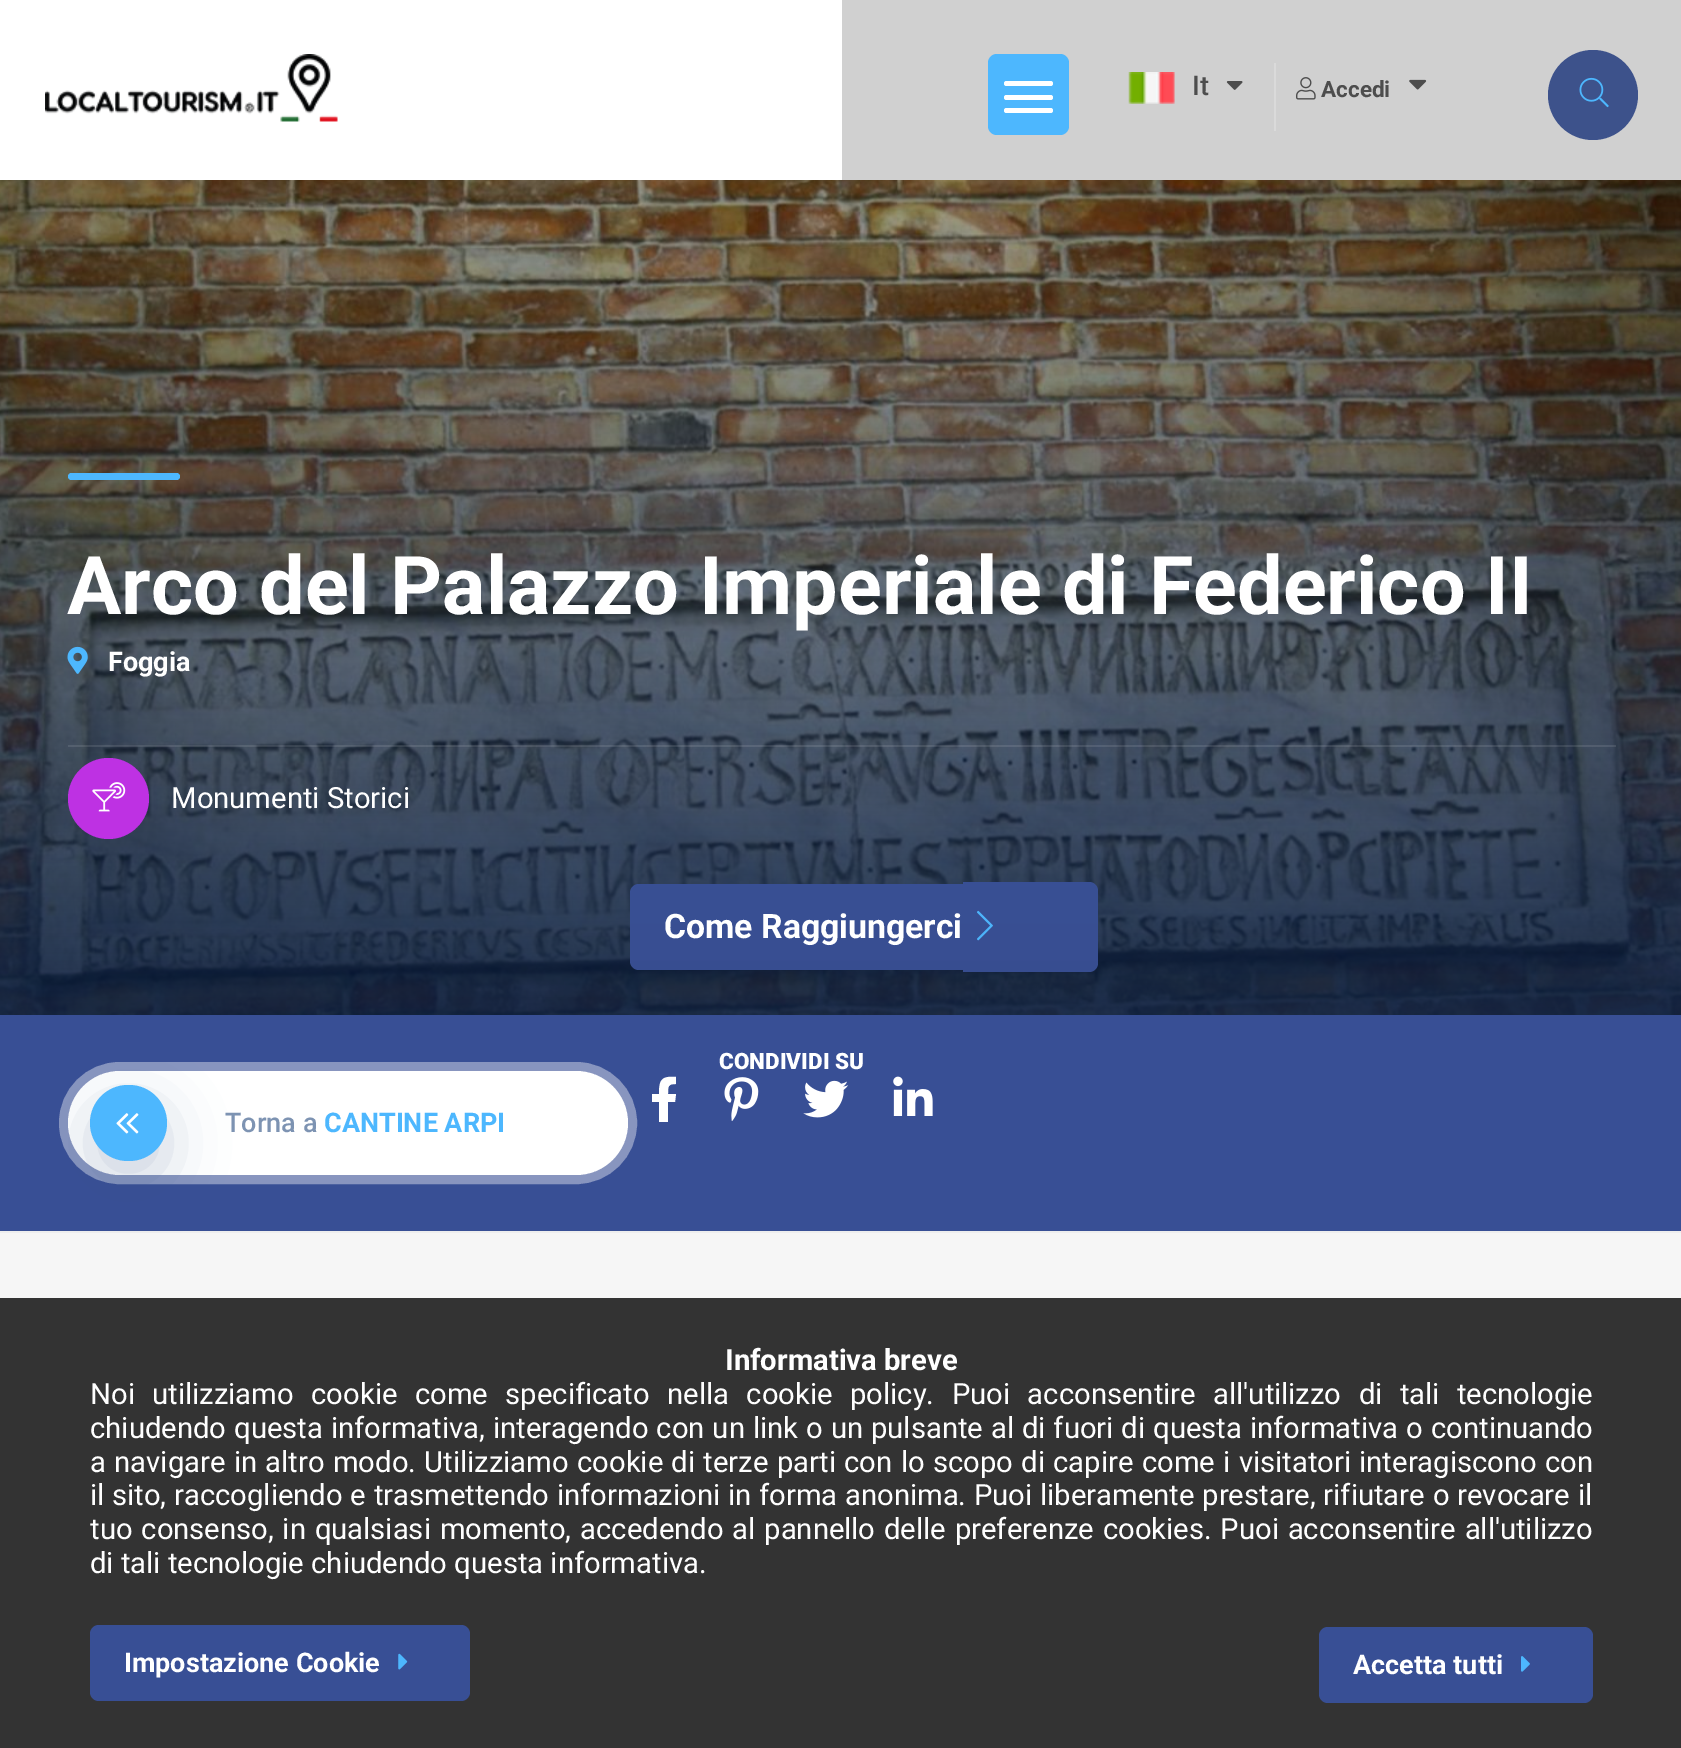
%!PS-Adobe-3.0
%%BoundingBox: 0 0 1681 1748
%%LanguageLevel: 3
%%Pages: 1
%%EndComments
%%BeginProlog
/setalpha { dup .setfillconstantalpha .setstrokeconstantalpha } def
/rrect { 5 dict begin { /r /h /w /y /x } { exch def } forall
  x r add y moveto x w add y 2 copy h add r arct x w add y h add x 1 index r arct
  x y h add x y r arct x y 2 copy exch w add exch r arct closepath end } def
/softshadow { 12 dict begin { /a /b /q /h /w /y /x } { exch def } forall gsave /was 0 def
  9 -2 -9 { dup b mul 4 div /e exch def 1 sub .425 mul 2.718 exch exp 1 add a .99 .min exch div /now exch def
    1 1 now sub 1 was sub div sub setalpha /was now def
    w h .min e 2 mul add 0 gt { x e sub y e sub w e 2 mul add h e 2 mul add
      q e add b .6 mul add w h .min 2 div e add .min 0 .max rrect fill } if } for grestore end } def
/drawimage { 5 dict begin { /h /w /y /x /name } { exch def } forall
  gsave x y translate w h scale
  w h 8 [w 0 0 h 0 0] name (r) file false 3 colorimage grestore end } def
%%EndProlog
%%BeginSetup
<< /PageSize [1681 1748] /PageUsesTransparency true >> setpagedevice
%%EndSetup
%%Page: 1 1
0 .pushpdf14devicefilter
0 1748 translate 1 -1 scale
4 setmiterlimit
1 setgray
0 0 1681 1748 rectfill
0.816 setgray
842 0 839 180 rectfill
(images/1.raw) 45 54 293 68 drawimage
0.302 0.718 0.996 setrgbcolor
988 54 81 81 9 rrect fill
1 setgray
1004 81 49 5 2.5 rrect fill
1004 95 49 5 2.5 rrect fill
1004 108 49 5 2.5 rrect fill
(images/2.raw) 1128 72 47 32 drawimage
(images/3.raw) 1226 81 17 9 drawimage
0.855 setgray
1274 63 2 68 rectfill
(images/4.raw) 1296 77 20 23 drawimage
(images/5.raw) 1409 79 18 11 drawimage
0.239 0.322 0.545 setrgbcolor
newpath 1593 95 45 0 360 arc closepath fill
(images/6.raw) 1579 77 30 31 drawimage
(images/7.raw) 0 180 1681 835 drawimage
0.302 0.718 0.996 setrgbcolor
68 473 112 7 3.5 rrect fill
(images/8.raw) 67 646 21 28 drawimage
0.1 setalpha
1 setgray
68 745 1548 2 rectfill
1 setalpha
0.745 0.192 0.89 setrgbcolor
newpath 108.5 798.5 40.5 0 360 arc closepath fill
(images/9.raw) 92 782 34 30 drawimage
0.22 0.31 0.584 setrgbcolor
newpath 639 884 moveto 963 884 lineto 963 970 lineto 639 970 lineto 634 970 630 966 630 961 curveto 630 893 lineto 630 888 634 884 639 884 curveto closepath fill
newpath 963 882 moveto 1089 882 lineto 1094 882 1098 886 1098 891 curveto 1098 963 lineto 1098 968 1094 972 1089 972 curveto 963 972 lineto closepath fill
(images/10.raw) 977 910 16 31 drawimage
0 setgray
0 1015 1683 218 0 73 0.09 softshadow
0.22 0.31 0.584 setrgbcolor
0 1015 1681 216 rectfill
0.933 setgray
0 1231 1681 2 rectfill
1 setgray
newpath 675 1102 moveto 668 1102 lineto 668 1122 lineto 659 1122 lineto 659 1102 lineto 652 1102 lineto 652 1094 lineto 659 1094 lineto 659 1079 662 1076 676 1077 curveto 676 1084 lineto 668 1084 668 1086 668 1094 curveto 676 1094 lineto closepath fill
(images/11.raw) 724 1077 35 44 drawimage
(images/12.raw) 803 1080 46 38 drawimage
(images/13.raw) 893 1076 40 40 drawimage
0.533 0.584 0.749 setrgbcolor
9 setlinewidth
63.5 1066.5 569 113 56.5 rrect stroke
1 setgray
68 1071 560 104 52 rrect fill
0.227 0.341 0.529 setrgbcolor
90 1105 77 76 38 29 0.25 softshadow
0.302 0.718 0.996 setrgbcolor
90 1085 77 76 38 rrect fill
(images/14.raw) 116 1113 23 21 drawimage
0.965 setgray
0 1233 1681 65 rectfill
0.2 setgray
0 1298 1681 450 rectfill
0.22 0.31 0.584 setrgbcolor
90 1625 380 76 9 rrect fill
(images/15.raw) 398 1653 10 17 drawimage
1319 1627 274 76 9 rrect fill
(images/16.raw) 1521 1656 9 16 drawimage
/Roboto-Medium [27 0 0 -27 0 0] selectfont
0.302 setgray
1192 95 moveto (It) show
/Roboto-Bold [22.5 0 0 -22.5 0 0] selectfont
1321 97 moveto (Accedi) show
/Roboto-Bold [81 0 0 -81 0 0] selectfont
1 setgray
67 614 moveto (Arco del Palazzo Imperiale di Federico II) show
/Roboto-Bold [27 0 0 -27 0 0] selectfont
108 671 moveto (Foggia) show
/Roboto-Regular [29.25 0 0 -29.25 0 0] selectfont
171 808 moveto (Monumenti Storici) show
/Roboto-Bold [33.75 0 0 -33.75 0 0] selectfont
664 938 moveto (Come Raggiungerci) show
/Roboto-Black [22.5 0 0 -22.5 0 0] selectfont
719 1069 moveto (CONDIVIDI SU) show
/Roboto-Medium [27 0 0 -27 0 0] selectfont
0.49 0.576 0.698 setrgbcolor
225 1132 moveto (Torna a) show
/Roboto-Bold [27 0 0 -27 0 0] selectfont
0.302 0.718 0.996 setrgbcolor
324 1132 moveto (CANTINE ARPI) show
/Roboto-Bold [29.25 0 0 -29.25 0 0] selectfont
1 setgray
725 1370 moveto (Informativa breve) show
/Roboto-Regular [29.25 0 0 -29.25 0 0] selectfont
90 1404 moveto 10.25 0 32 (Noi utilizziamo cookie come specificato nella cookie policy. Puoi acconsentire all'utilizzo di tali tecnologie) widthshow
90 1438 moveto 0.75 0 32 (chiudendo questa informativa, interagendo con un link o un pulsante al di fuori di questa informativa o continuando) widthshow
90 1472 moveto 1.1 0 32 (a navigare in altro modo. Utilizziamo cookie di terze parti con lo scopo di capire come i visitatori interagiscono con) widthshow
90 1505 moveto 0.5 0 32 (il sito, raccogliendo e trasmettendo informazioni in forma anonima. Puoi liberamente prestare, rifiutare o revocare il) widthshow
90 1539 moveto 1.6 0 32 (tuo consenso, in qualsiasi momento, accedendo al pannello delle preferenze cookies. Puoi acconsentire all'utilizzo) widthshow
90 1573 moveto (di tali tecnologie chiudendo questa informativa.) show
/Roboto-Bold [27 0 0 -27 0 0] selectfont
124 1672 moveto (Impostazione Cookie) show
1353 1674 moveto (Accetta tutti) show
.poppdf14devicefilter showpage
%%EOF
